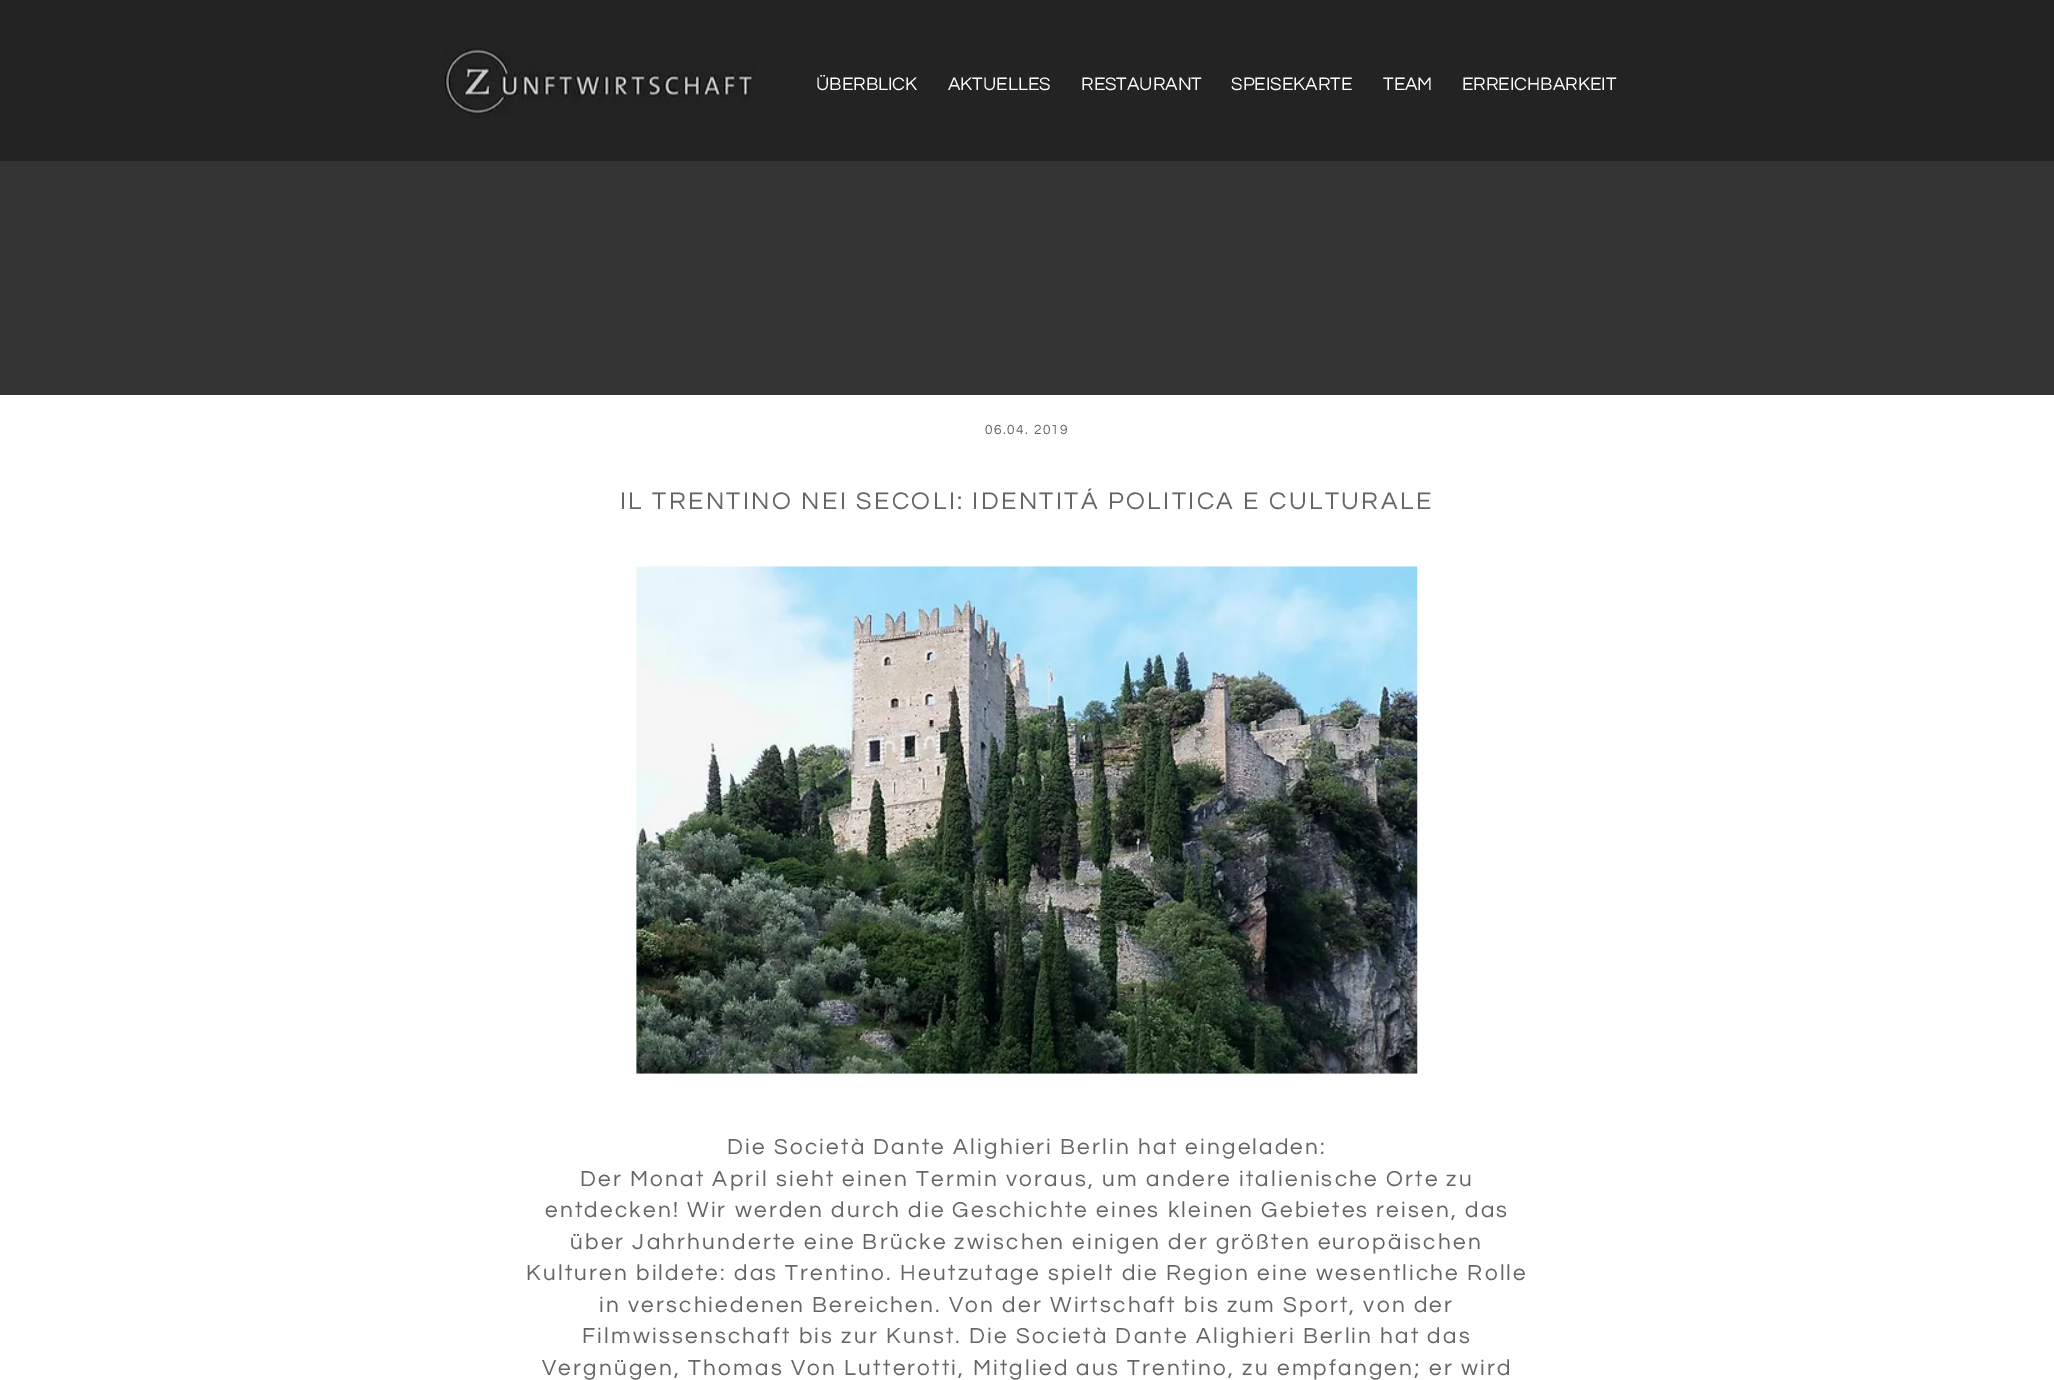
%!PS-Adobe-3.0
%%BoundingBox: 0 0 2054 1380
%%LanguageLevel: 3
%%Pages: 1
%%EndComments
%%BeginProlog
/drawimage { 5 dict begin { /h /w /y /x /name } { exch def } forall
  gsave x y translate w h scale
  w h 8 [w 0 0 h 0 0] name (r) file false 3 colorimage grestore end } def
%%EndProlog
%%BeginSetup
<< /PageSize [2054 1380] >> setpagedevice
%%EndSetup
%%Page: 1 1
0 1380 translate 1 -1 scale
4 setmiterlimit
0.2 setgray
0 0 2054 1380 rectfill
0.141 0.137 0.137 setrgbcolor
0 0 2054 161 rectfill
(images/1.raw) 444 47 311 71 drawimage
1 setgray
0 395 2054 985 rectfill
(images/2.raw) 636 566 782 508 drawimage
/Questrial-Regular [18.75 0 0 -18.75 0 0] selectfont
816 90 moveto (ÜBERBLICK) show
948 90 moveto (AKTUELLES) show
1081 90 moveto (RESTAURANT) show
1231 90 moveto (SPEISEKARTE) show
1383 90 moveto (TEAM) show
1462 90 moveto (ERREICHBARKEIT) show
/Questrial-Regular [13.75 0 0 -13.75 0 0] selectfont
0.396 setgray
985 434 moveto 1.4 0 (06.04. 2019) ashow
/Questrial-Regular [25 0 0 -25 0 0] selectfont
620 509 moveto 2.5 0 (IL TRENTINO NEI SECOLI: IDENTITÁ POLITICA E CULTURALE) ashow
/Questrial-Regular [22.5 0 0 -22.5 0 0] selectfont
727 1154 moveto 2.25 0 (Die Società Dante Alighieri Berlin hat eingeladen:) ashow
580 1186 moveto 2.25 0 (Der Monat April sieht einen Termin voraus, um andere italienische Orte zu) ashow
545 1217 moveto 2.25 0 (entdecken! Wir werden durch die Geschichte eines kleinen Gebietes reisen, das) ashow
570 1249 moveto 2.25 0 (über Jahrhunderte eine Brücke zwischen einigen der größten europäischen) ashow
526 1280 moveto 2.25 0 (Kulturen bildete: das Trentino. Heutzutage spielt die Region eine wesentliche Rolle) ashow
599 1312 moveto 2.25 0 (in verschiedenen Bereichen. Von der Wirtschaft bis zum Sport, von der) ashow
582 1343 moveto 2.25 0 (Filmwissenschaft bis zur Kunst. Die Società Dante Alighieri Berlin hat das) ashow
542 1375 moveto 2.25 0 (Vergnügen, Thomas Von Lutterotti, Mitglied aus Trentino, zu empfangen; er wird) ashow
showpage
%%EOF
